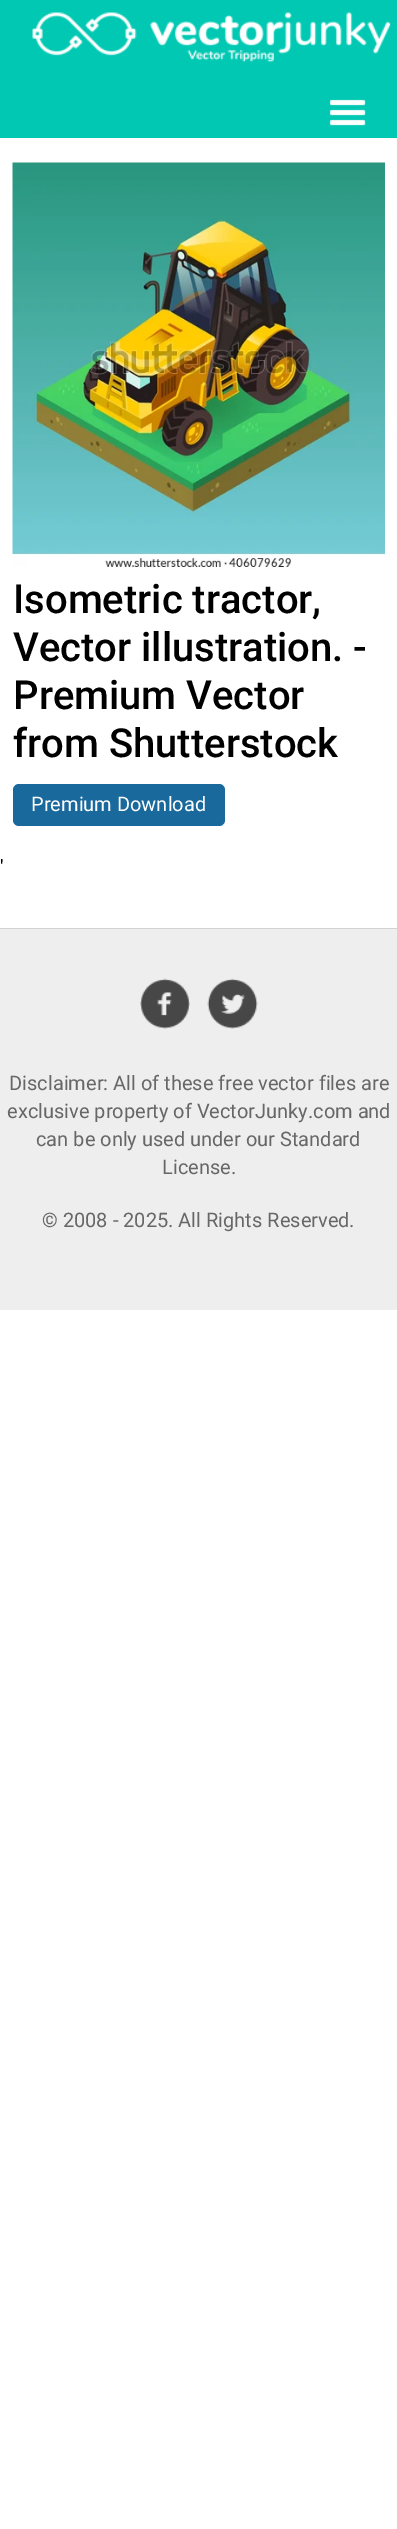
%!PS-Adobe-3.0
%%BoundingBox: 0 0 397 2529
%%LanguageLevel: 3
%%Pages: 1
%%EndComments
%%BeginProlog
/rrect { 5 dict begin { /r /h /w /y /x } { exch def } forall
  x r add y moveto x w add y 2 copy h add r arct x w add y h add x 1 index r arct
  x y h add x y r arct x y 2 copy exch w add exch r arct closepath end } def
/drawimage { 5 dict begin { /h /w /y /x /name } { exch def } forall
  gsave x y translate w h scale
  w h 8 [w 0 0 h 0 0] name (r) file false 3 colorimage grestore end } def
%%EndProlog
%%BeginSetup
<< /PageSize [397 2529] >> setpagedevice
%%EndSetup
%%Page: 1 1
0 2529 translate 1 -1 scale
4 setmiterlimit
1 setgray
0 0 397 2529 rectfill
0 0.784 0.698 setrgbcolor
0 0 397 138 rectfill
(images/1.raw) 32 12 359 50 drawimage
(images/2.raw) 329 99 37 27 drawimage
(images/3.raw) 12 162 373 407 drawimage
0.098 0.412 0.612 setrgbcolor
13 784 212 42 6 rrect fill
0.933 setgray
0 929 397 381 rectfill
0.824 setgray
0 928 397 1 rectfill
(images/4.raw) 140 978 50 51 drawimage
(images/5.raw) 207 978 51 51 drawimage
/Roboto-Medium [40 0 0 -40 0 0] selectfont
0 setgray
13 613 moveto (Isometric tractor,) show
13 661 moveto (Vector illustration. -) show
13 709 moveto (Premium Vector) show
13 757 moveto (from Shutterstock) show
/Roboto-Regular [20 0 0 -20 0 0] selectfont
1 setgray
31 811 moveto (Premium Download) show
0 setgray
0 874 moveto (') show
0.404 setgray
9 1090 moveto (Disclaimer: All of these free vector files are) show
7 1118 moveto (exclusive property of VectorJunky.com and) show
36 1146 moveto (can be only used under our Standard) show
162 1174 moveto (License.) show
42 1227 moveto (© 2008 - 2025. All Rights Reserved.) show
showpage
%%EOF
